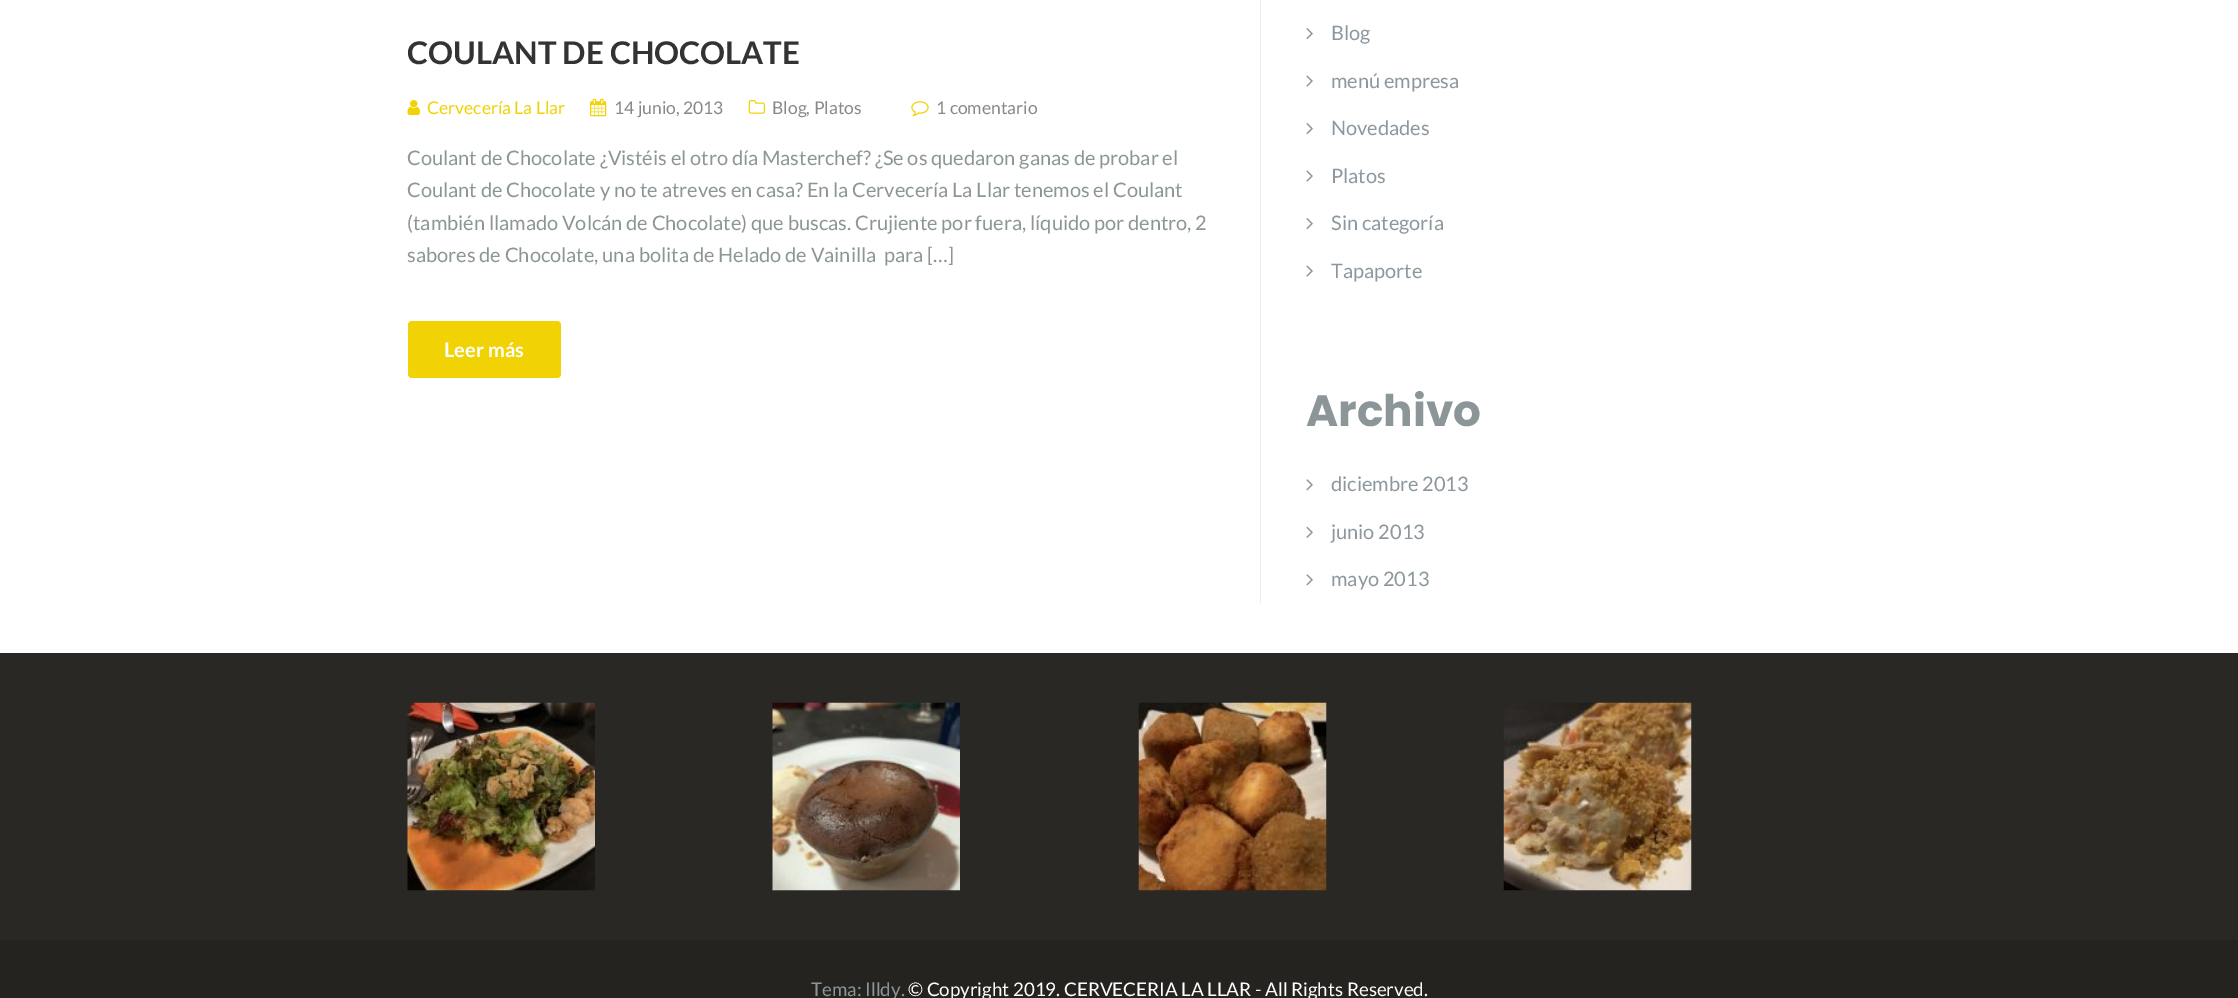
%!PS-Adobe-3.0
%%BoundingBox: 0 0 2238 998
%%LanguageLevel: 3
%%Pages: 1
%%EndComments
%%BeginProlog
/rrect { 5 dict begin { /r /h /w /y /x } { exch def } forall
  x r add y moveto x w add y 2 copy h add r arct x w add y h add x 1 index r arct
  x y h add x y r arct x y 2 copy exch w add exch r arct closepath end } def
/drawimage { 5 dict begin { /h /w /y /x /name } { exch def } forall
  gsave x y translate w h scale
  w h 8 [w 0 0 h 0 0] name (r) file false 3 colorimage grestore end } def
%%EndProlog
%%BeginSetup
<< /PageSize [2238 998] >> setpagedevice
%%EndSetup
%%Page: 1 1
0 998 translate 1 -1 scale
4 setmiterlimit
1 setgray
0 0 2238 998 rectfill
(images/1.raw) 407 100 13 15 drawimage
(images/2.raw) 590 98 17 19 drawimage
(images/3.raw) 748 100 17 14 drawimage
(images/4.raw) 911 101 18 16 drawimage
0.945 0.824 0.016 setrgbcolor
408 321 153 57 4 rrect fill
0.922 setgray
1260 0 1 603 rectfill
(images/5.raw) 1306 28 7 12 drawimage
(images/6.raw) 1306 75 7 12 drawimage
(images/5.raw) 1306 123 7 12 drawimage
(images/6.raw) 1306 170 7 12 drawimage
(images/5.raw) 1306 218 7 12 drawimage
(images/6.raw) 1306 265 7 12 drawimage
(images/7.raw) 1306 479 7 12 drawimage
(images/8.raw) 1306 526 7 12 drawimage
(images/7.raw) 1306 574 7 12 drawimage
0.161 0.157 0.145 setrgbcolor
0 653 2238 287 rectfill
(images/9.raw) 407 702 188 189 drawimage
(images/10.raw) 772 702 188 189 drawimage
(images/11.raw) 1138 702 189 189 drawimage
(images/12.raw) 1503 702 189 189 drawimage
0.141 0.137 0.125 setrgbcolor
0 940 2238 58 rectfill
/Lato-Bold [31.25 0 0 -31.25 0 0] selectfont
0.2 setgray
407 64 moveto (COULANT DE CHOCOLATE) show
/Lato-Regular [17.5 0 0 -17.5 0 0] selectfont
0.945 0.824 0.016 setrgbcolor
427 114 moveto (Cervecería La Llar) show
0.533 setgray
614 114 moveto (14 junio, 2013) show
772 114 moveto (Blog, Platos) show
936 114 moveto (1 comentario) show
/Lato-Regular [20 0 0 -20 0 0] selectfont
0.549 0.584 0.592 setrgbcolor
407 165 moveto (Coulant de Chocolate ¿Vistéis el otro día Masterchef? ¿Se os quedaron ganas de probar el) show
407 197 moveto (Coulant de Chocolate y no te atreves en casa? En la Cervecería La Llar tenemos el Coulant) show
407 230 moveto (\(también llamado Volcán de Chocolate\) que buscas. Crujiente por fuera, líquido por dentro, 2) show
407 262 moveto (sabores de Chocolate, una bolita de Helado de Vainilla  para […]) show
/Lato-Bold [20 0 0 -20 0 0] selectfont
1 setgray
444 357 moveto (Leer más) show
/Lato-Regular [20 0 0 -20 0 0] selectfont
0.549 0.592 0.62 setrgbcolor
1331 40 moveto (Blog) show
1331 88 moveto (menú empresa) show
1331 135 moveto (Novedades) show
1331 183 moveto (Platos) show
1331 230 moveto (Sin categoría) show
1331 278 moveto (Tapaporte) show
/Poppins-Bold [43.75 0 0 -43.75 0 0] selectfont
0.549 0.584 0.592 setrgbcolor
1306 426 moveto (Archivo) show
/Lato-Regular [20 0 0 -20 0 0] selectfont
0.549 0.592 0.62 setrgbcolor
1331 491 moveto (diciembre 2013) show
1331 539 moveto (junio 2013) show
1331 586 moveto (mayo 2013) show
/Lato-Regular [18.75 0 0 -18.75 0 0] selectfont
0.549 0.584 0.592 setrgbcolor
811 996 moveto (Tema: Illdy.) show
1 setgray
908 996 moveto (© Copyright 2019. CERVECERIA LA LLAR - All Rights Reserved.) show
showpage
%%EOF
